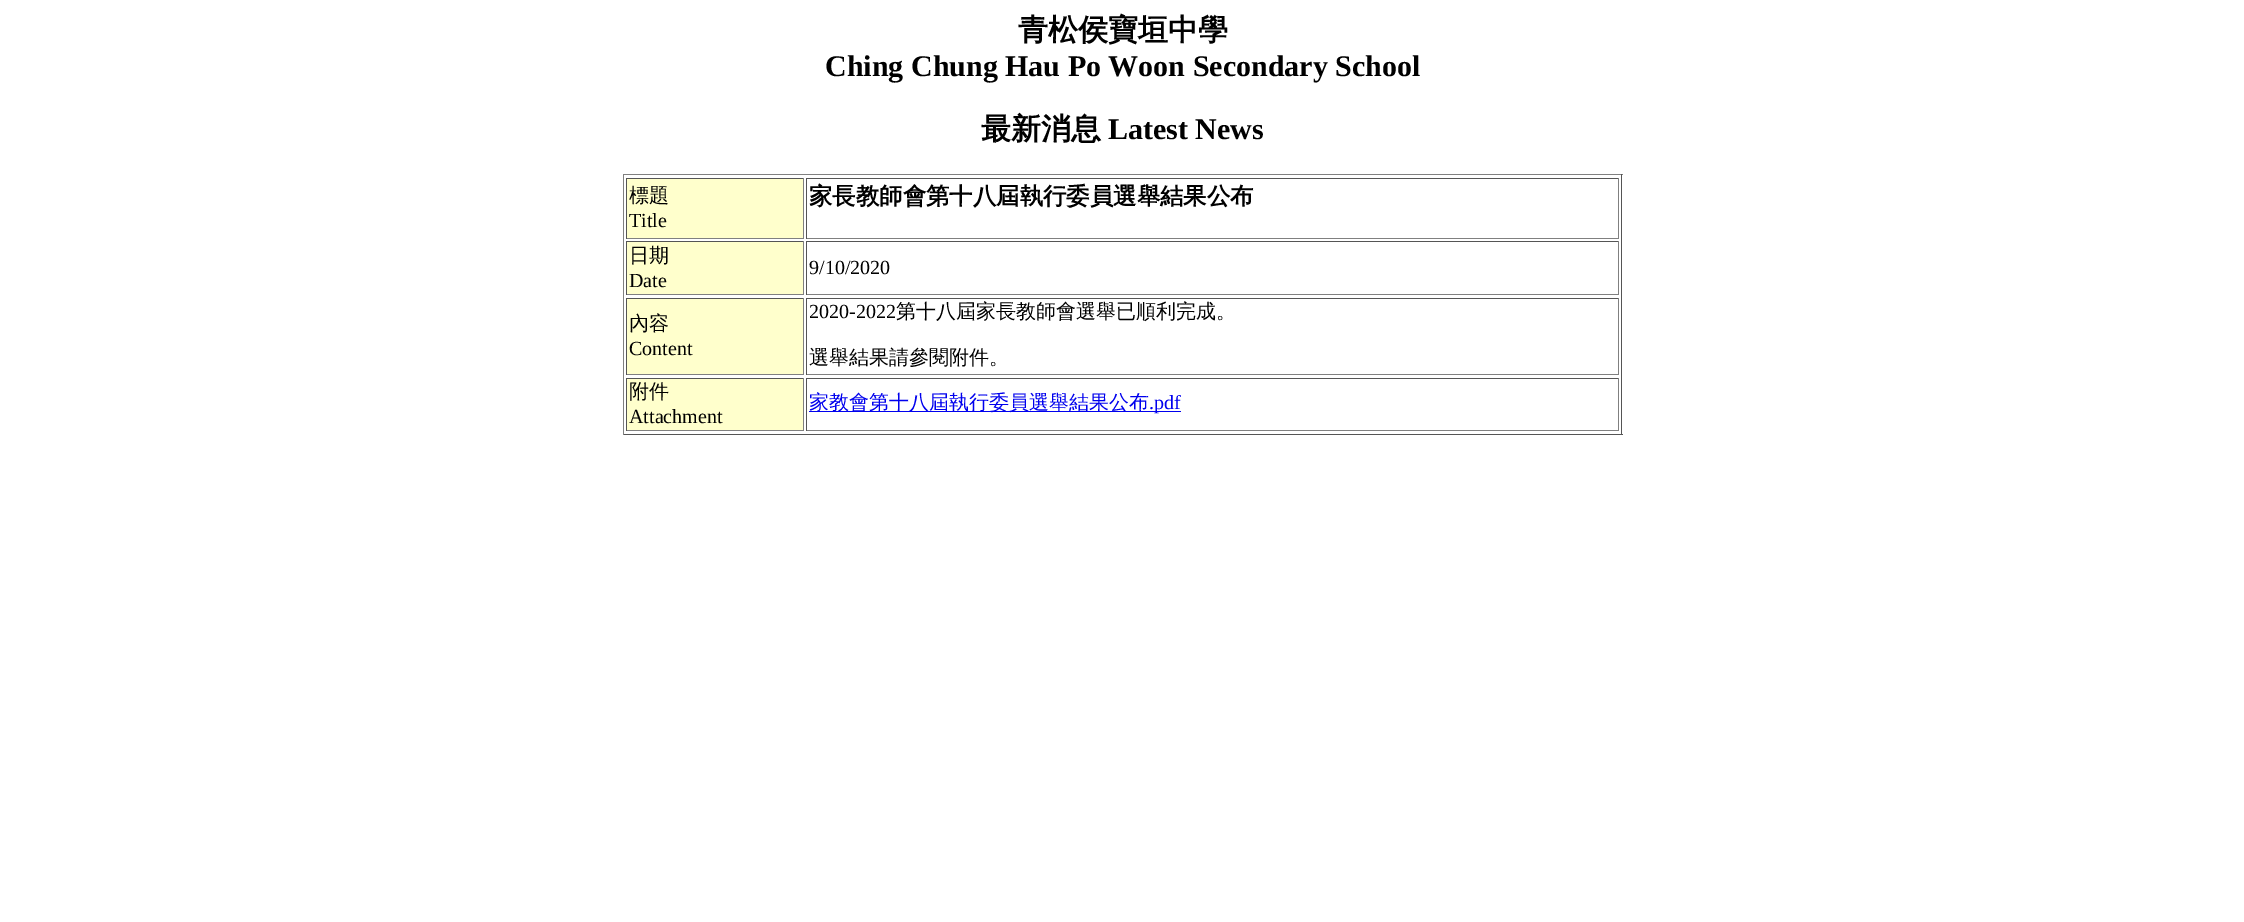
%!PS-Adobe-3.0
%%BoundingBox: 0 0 2244 922
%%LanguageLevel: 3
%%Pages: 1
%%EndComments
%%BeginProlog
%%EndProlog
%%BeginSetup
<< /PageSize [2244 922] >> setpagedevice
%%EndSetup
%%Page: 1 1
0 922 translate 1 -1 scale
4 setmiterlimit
1 setgray
0 0 2244 922 rectfill
0.502 setgray
623 174 1000 1 rectfill
0.333 setgray
1621 174 1 261 rectfill
623 434 1000 1 rectfill
0.502 setgray
623 174 1 261 rectfill
1 1 0.8 setrgbcolor
627 179 176 59 rectfill
0.333 setgray
626 178 178 1 rectfill
0.502 setgray
803 178 1 61 rectfill
626 238 178 1 rectfill
0.333 setgray
626 178 1 61 rectfill
806 178 813 1 rectfill
0.502 setgray
1618 178 1 61 rectfill
806 238 813 1 rectfill
0.333 setgray
806 178 1 61 rectfill
1 1 0.8 setrgbcolor
627 242 176 52 rectfill
0.333 setgray
626 241 178 1 rectfill
0.502 setgray
803 241 1 54 rectfill
626 294 178 1 rectfill
0.333 setgray
626 241 1 54 rectfill
806 241 813 1 rectfill
0.502 setgray
1618 241 1 54 rectfill
806 294 813 1 rectfill
0.333 setgray
806 241 1 54 rectfill
1 1 0.8 setrgbcolor
627 299 176 75 rectfill
0.333 setgray
626 298 178 1 rectfill
0.502 setgray
803 298 1 77 rectfill
626 374 178 1 rectfill
0.333 setgray
626 298 1 77 rectfill
806 298 813 1 rectfill
0.502 setgray
1618 298 1 77 rectfill
806 374 813 1 rectfill
0.333 setgray
806 298 1 77 rectfill
1 1 0.8 setrgbcolor
627 379 176 51 rectfill
0.333 setgray
626 378 178 1 rectfill
0.502 setgray
803 378 1 53 rectfill
626 430 178 1 rectfill
0.333 setgray
626 378 1 53 rectfill
806 378 813 1 rectfill
0.502 setgray
1618 378 1 53 rectfill
806 430 813 1 rectfill
0.333 setgray
806 378 1 53 rectfill
0 0 0.933 setrgbcolor
809 411 372 1 rectfill
/WenQuanYiZenHei-Bold [30 0 0 -30 0 0] selectfont
0 setgray
1018 40 moveto (青松侯寶垣中學) show
/LiberationSerif-Bold [30 0 0 -30 0 0] selectfont
825 76 moveto (Ching Chung Hau Po Woon Secondary School) show
/WenQuanYiZenHei-Bold [30 0 0 -30 0 0] selectfont
981 139 moveto (最新消息) show
/LiberationSerif-Bold [30 0 0 -30 0 0] selectfont
1108 139 moveto (Latest News) show
/WenQuanYiZenHei-Medium [20 0 0 -20 0 0] selectfont
629 202 moveto (標題) show
/LiberationSerif-Regular [20 0 0 -20 0 0] selectfont
629 227 moveto (Title) show
/WenQuanYiZenHei-Bold [23.4 0 0 -23.4 0 0] selectfont
809 204 moveto (家長教師會第十八屆執行委員選舉結果公布) show
/WenQuanYiZenHei-Medium [20 0 0 -20 0 0] selectfont
629 262 moveto (日期) show
/LiberationSerif-Regular [20 0 0 -20 0 0] selectfont
629 287 moveto (Date) show
809 274 moveto (9/10/2020) show
/WenQuanYiZenHei-Medium [20 0 0 -20 0 0] selectfont
629 330 moveto (內容) show
/LiberationSerif-Regular [20 0 0 -20 0 0] selectfont
629 355 moveto (Content) show
809 318 moveto (2020-2022) show
/WenQuanYiZenHei-Medium [20 0 0 -20 0 0] selectfont
896 318 moveto (第十八屆家長教師會選舉已順利完成。) show
809 364 moveto (選舉結果請參閱附件。) show
629 398 moveto (附件) show
/LiberationSerif-Regular [20 0 0 -20 0 0] selectfont
629 423 moveto (Attachment) show
/WenQuanYiZenHei-Medium [20 0 0 -20 0 0] selectfont
0 0 0.933 setrgbcolor
809 409 moveto (家教會第十八屆執行委員選舉結果公布) show
/LiberationSerif-Regular [20 0 0 -20 0 0] selectfont
1149 409 moveto (.pdf) show
showpage
%%EOF
